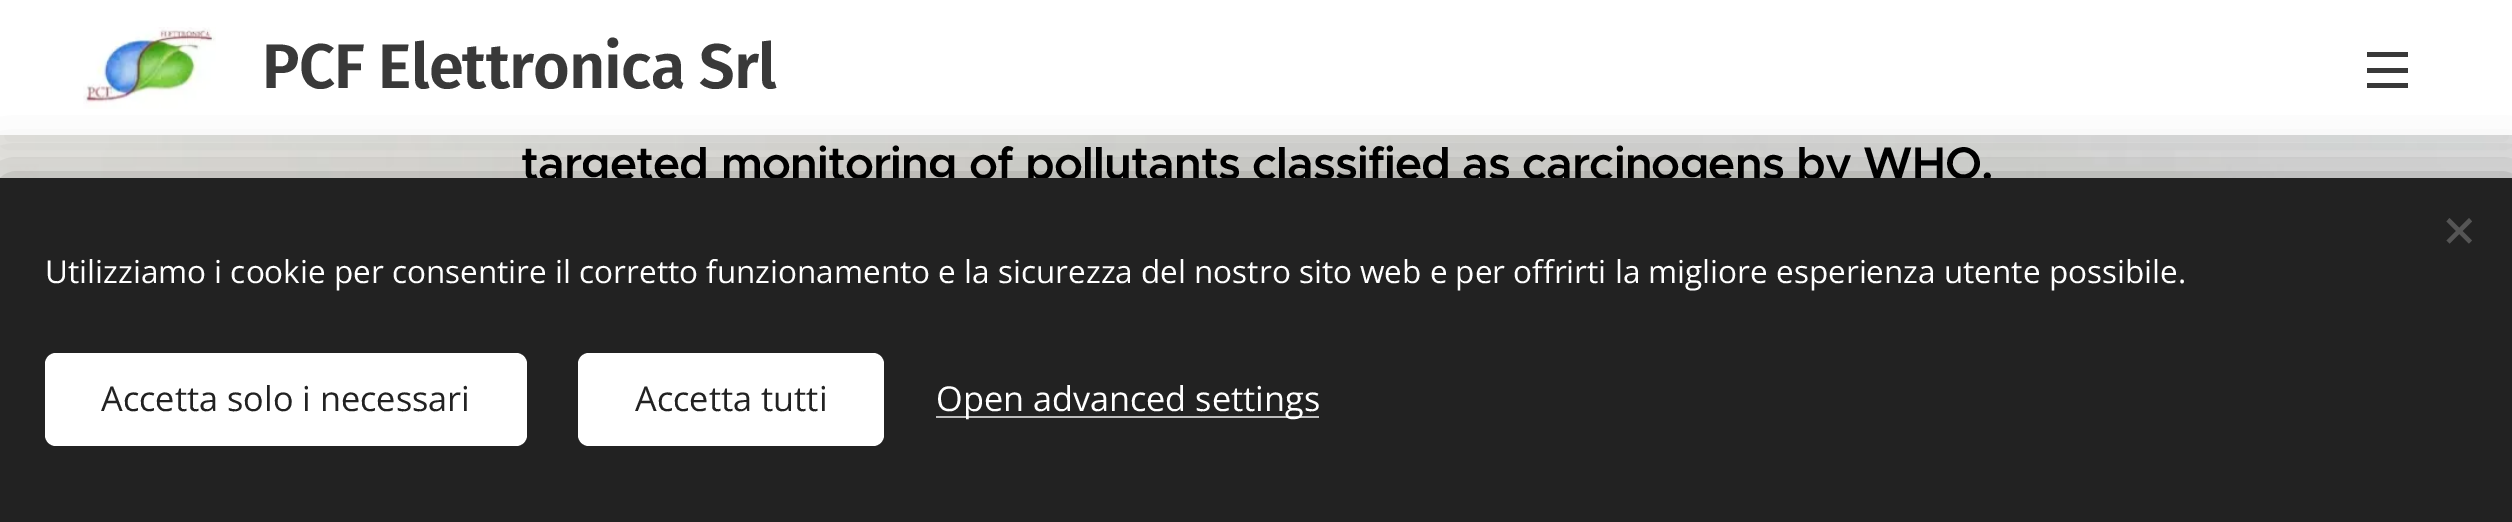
%!PS-Adobe-3.0
%%BoundingBox: 0 0 2512 522
%%LanguageLevel: 3
%%Pages: 1
%%EndComments
%%BeginProlog
/setalpha { dup .setfillconstantalpha .setstrokeconstantalpha } def
/rrect { 5 dict begin { /r /h /w /y /x } { exch def } forall
  x r add y moveto x w add y 2 copy h add r arct x w add y h add x 1 index r arct
  x y h add x y r arct x y 2 copy exch w add exch r arct closepath end } def
/softshadow { 12 dict begin { /a /b /q /h /w /y /x } { exch def } forall gsave /was 0 def
  9 -2 -9 { dup b mul 4 div /e exch def 1 sub .425 mul 2.718 exch exp 1 add a .99 .min exch div /now exch def
    1 1 now sub 1 was sub div sub setalpha /was now def
    w h .min e 2 mul add 0 gt { x e sub y e sub w e 2 mul add h e 2 mul add
      q e add b .6 mul add w h .min 2 div e add .min 0 .max rrect fill } if } for grestore end } def
/drawimage { 5 dict begin { /h /w /y /x /name } { exch def } forall
  gsave x y translate w h scale
  w h 8 [w 0 0 h 0 0] name (r) file false 3 colorimage grestore end } def
%%EndProlog
%%BeginSetup
<< /PageSize [2512 522] /PageUsesTransparency true >> setpagedevice
%%EndSetup
%%Page: 1 1
0 .pushpdf14devicefilter
0 522 translate 1 -1 scale
4 setmiterlimit
1 setgray
0 0 2512 522 rectfill
(images/2.raw) 0 135 2512 43 drawimage
0 setgray
0 11 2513 135 0 17 0.07 softshadow
1 setgray
0 0 2512 135 rectfill
(images/1.raw) 83 27 133 82 drawimage
0.224 setgray
2367 68 41 5 rectfill
2367 52 41 5 rectfill
2367 83 41 5 rectfill
0 setgray
0 178 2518 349 0 28 0.33 softshadow
/FiraSans-SemiBold [63 0 0 -63 0 0] selectfont
0.224 setgray
262 88 moveto -0.83 0 (PCF Elettronica Srl) ashow
/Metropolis-SemiBold [45.8 0 0 -45.8 0 0] selectfont
0 setgray
521 179 moveto -0.83 0 (targeted monitoring of pollutants classified as carcinogens by WHO.) ashow
0.133 setgray
0 178 2512 344 rectfill
0.333 setgray
newpath 2446.5 240.5 moveto 2469 218 lineto 2472 221.5 lineto 2449.5 243.5 lineto closepath fill
newpath 2449.5 218 moveto 2472 240.5 lineto 2469 243.5 lineto 2446.5 221.5 lineto closepath fill
/OpenSans-Regular [31.5 0 0 -31.5 0 0] selectfont
1 setgray
45 283 moveto (Utilizziamo i cookie per consentire il corretto funzionamento e la sicurezza del nostro sito web e per offrirti la migliore esperienza utente possibile.) show
45 353 482 93 11 rrect fill
/OpenSans-Regular [34.25 0 0 -34.25 0 0] selectfont
0.133 setgray
101 411 moveto (Accetta solo i necessari) show
1 setgray
578 353 306 93 11 rrect fill
0.133 setgray
635 411 moveto (Accetta tutti) show
0.741 setgray
936 416 383 2 rectfill
1 setgray
936 411 moveto (Open advanced settings) show
.poppdf14devicefilter showpage
%%EOF
